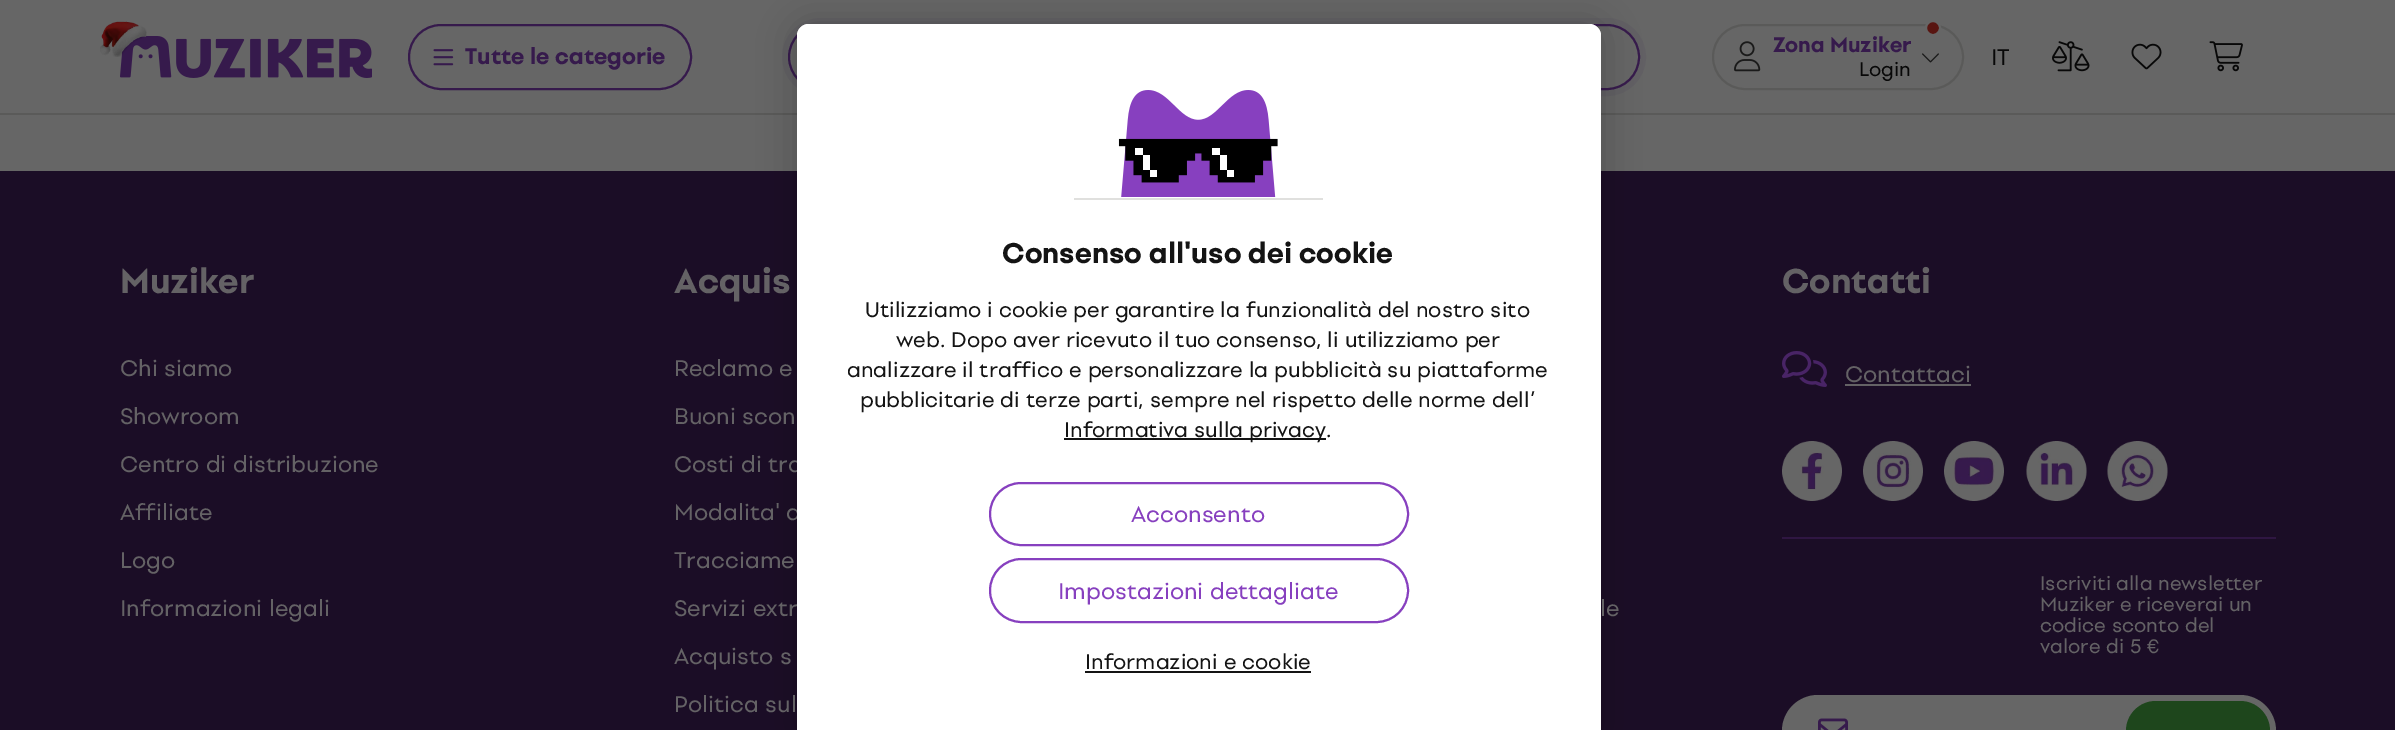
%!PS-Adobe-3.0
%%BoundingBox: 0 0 2395 730
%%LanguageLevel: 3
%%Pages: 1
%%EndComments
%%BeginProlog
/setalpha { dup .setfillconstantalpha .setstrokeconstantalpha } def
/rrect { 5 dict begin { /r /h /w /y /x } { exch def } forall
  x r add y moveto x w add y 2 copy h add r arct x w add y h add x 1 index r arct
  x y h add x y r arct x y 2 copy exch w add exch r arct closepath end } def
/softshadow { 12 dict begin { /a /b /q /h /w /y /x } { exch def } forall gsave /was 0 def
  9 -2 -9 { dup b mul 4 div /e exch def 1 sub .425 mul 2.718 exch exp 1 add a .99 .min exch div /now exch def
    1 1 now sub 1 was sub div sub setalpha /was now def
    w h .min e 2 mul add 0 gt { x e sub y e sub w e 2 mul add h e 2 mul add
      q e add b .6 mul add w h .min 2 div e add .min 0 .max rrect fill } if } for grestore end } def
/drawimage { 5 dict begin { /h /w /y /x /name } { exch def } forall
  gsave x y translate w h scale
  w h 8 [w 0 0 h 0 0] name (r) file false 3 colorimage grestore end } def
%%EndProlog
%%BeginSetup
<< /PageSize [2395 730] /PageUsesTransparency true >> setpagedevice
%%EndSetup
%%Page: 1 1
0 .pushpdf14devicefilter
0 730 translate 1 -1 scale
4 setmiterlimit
0.4 setgray
0 0 2395 730 rectfill
0.353 0.353 0.349 setrgbcolor
0 113 2395 2 rectfill
(images/2.raw) 120 36 252 42 drawimage
(images/1.raw) 100 21 47 36 drawimage
0.212 0.102 0.298 setrgbcolor
2 setlinewidth
409 25 282 64 32 rrect stroke
(images/3.raw) 433 49 21 17 drawimage
0.384 0.376 0.392 setrgbcolor
6 setlinewidth
785 21 858 72 36 rrect stroke
0.212 0.102 0.298 setrgbcolor
2 setlinewidth
789 25 850 64 32 rrect stroke
0.353 0.353 0.349 setrgbcolor
1713 25 250 64 32 rrect stroke
0.345 0.082 0.067 setrgbcolor
newpath 1933 28 7 0 360 arc closepath gsave fill grestore
0.4 setgray
stroke
(images/4.raw) 1734 41 27 31 drawimage
(images/5.raw) 1922 53 17 10 drawimage
(images/6.raw) 2052 41 38 31 drawimage
(images/7.raw) 2131 43 31 27 drawimage
(images/8.raw) 2209 41 34 31 drawimage
0.106 0.051 0.149 setrgbcolor
0 171 2395 559 rectfill
0 setgray
797 26 804 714 12 19 0.2 softshadow
(images/11.raw) 1782 351 45 36 drawimage
0.392 0.384 0.396 setrgbcolor
1845 384 126 2 rectfill
(images/12.raw) 1782 441 60 60 drawimage
(images/13.raw) 1863 441 60 60 drawimage
(images/14.raw) 1944 441 60 60 drawimage
(images/15.raw) 2026 441 61 60 drawimage
(images/16.raw) 2107 441 61 60 drawimage
0.184 0.086 0.259 setrgbcolor
1782 537 494 2 rectfill
0.4 setgray
1782 695 494 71 36 rrect fill
(images/17.raw) 1818 718 30 12 drawimage
0.118 0.275 0.11 setrgbcolor
2126 701 144 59 30 rrect fill
/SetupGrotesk-Bold [22.5 0 0 -22.5 0 0] selectfont
0.212 0.102 0.298 setrgbcolor
465 64 moveto (Tutte le categorie) show
/SetupGrotesk-Bold [21 0 0 -21 0 0] selectfont
1773 52 moveto (Zona Muziker) show
/SetupGrotesk-Regular [19.5 0 0 -19.5 0 0] selectfont
0.031 setgray
1859 76 moveto (Login) show
/SetupGrotesk-Regular [22.5 0 0 -22.5 0 0] selectfont
1991 65 moveto (IT) show
/SetupGrotesk-Bold [34.5 0 0 -34.5 0 0] selectfont
0.392 0.384 0.396 setrgbcolor
120 293 moveto (Muziker) show
/SetupGrotesk-Regular [22.5 0 0 -22.5 0 0] selectfont
120 376 moveto (Chi siamo) show
120 424 moveto (Showroom) show
120 472 moveto (Centro di distribuzione) show
120 520 moveto (Affiliate) show
120 568 moveto (Logo) show
120 616 moveto (Informazioni legali) show
/SetupGrotesk-Bold [34.5 0 0 -34.5 0 0] selectfont
674 293 moveto (Acquis) show
/SetupGrotesk-Regular [22.5 0 0 -22.5 0 0] selectfont
674 376 moveto (Reclamo e) show
674 424 moveto (Buoni scon) show
674 472 moveto (Costi di tra) show
674 520 moveto (Modalita' d) show
1 setgray
797 24 804 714 12 rrect fill
gsave
797 24 804 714 12 rrect clip newpath
newpath 809 24 moveto 1589 24 lineto 1595.5 24 1601 29.5 1601 36 curveto 1601 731 lineto 797 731 lineto 797 36 lineto 797 29.5 802.5 24 809 24 curveto closepath fill
grestore
(images/9.raw) 1121 90 155 107 drawimage
(images/10.raw) 1118 138 160 45 drawimage
0.878 0.878 0.871 setrgbcolor
1074 198 249 2 rectfill
/SetupGrotesk-Regular [21 0 0 -21 0 0] selectfont
0.078 setgray
1085 669 moveto (Informazioni e cookie) show
1085 671 226 2 rectfill
0.529 0.251 0.749 setrgbcolor
990 559 418 63 31.5 rrect stroke
/SetupGrotesk-Regular [22.5 0 0 -22.5 0 0] selectfont
1058 599 moveto (Impostazioni dettagliate) show
990 483 418 62 31 rrect stroke
1131 522 moveto (Acconsento) show
0.078 setgray
1064 438 262 2 rectfill
/SetupGrotesk-Regular [21 0 0 -21 0 0] selectfont
1064 437 moveto (Informativa sulla privacy.) show
860 407 moveto (pubblicitarie di terze parti, sempre nel rispetto delle norme dell’) show
847 377 moveto (analizzare il traffico e personalizzare la pubblicità su piattaforme) show
896 347 moveto (web. Dopo aver ricevuto il tuo consenso, li utilizziamo per) show
865 317 moveto (Utilizziamo i cookie per garantire la funzionalità del nostro sito) show
/SetupGrotesk-Bold [28.5 0 0 -28.5 0 0] selectfont
1002 263 moveto (Consenso all'uso dei cookie) show
/SetupGrotesk-Regular [22.5 0 0 -22.5 0 0] selectfont
0.392 0.384 0.396 setrgbcolor
674 568 moveto (Tracciame) show
674 616 moveto (Servizi extr) show
674 664 moveto (Acquisto s) show
674 712 moveto (Politica sul) show
1600 616 moveto (le) show
/SetupGrotesk-Bold [34.5 0 0 -34.5 0 0] selectfont
1782 293 moveto (Contatti) show
/SetupGrotesk-Regular [22.5 0 0 -22.5 0 0] selectfont
1845 382 moveto (Contattaci) show
/SetupGrotesk-Regular [19.5 0 0 -19.5 0 0] selectfont
2040 590 moveto (Iscriviti alla newsletter) show
2040 611 moveto (Muziker e riceverai un) show
2040 632 moveto (codice sconto del) show
2040 653 moveto (valore di 5 €) show
.poppdf14devicefilter showpage
%%EOF
